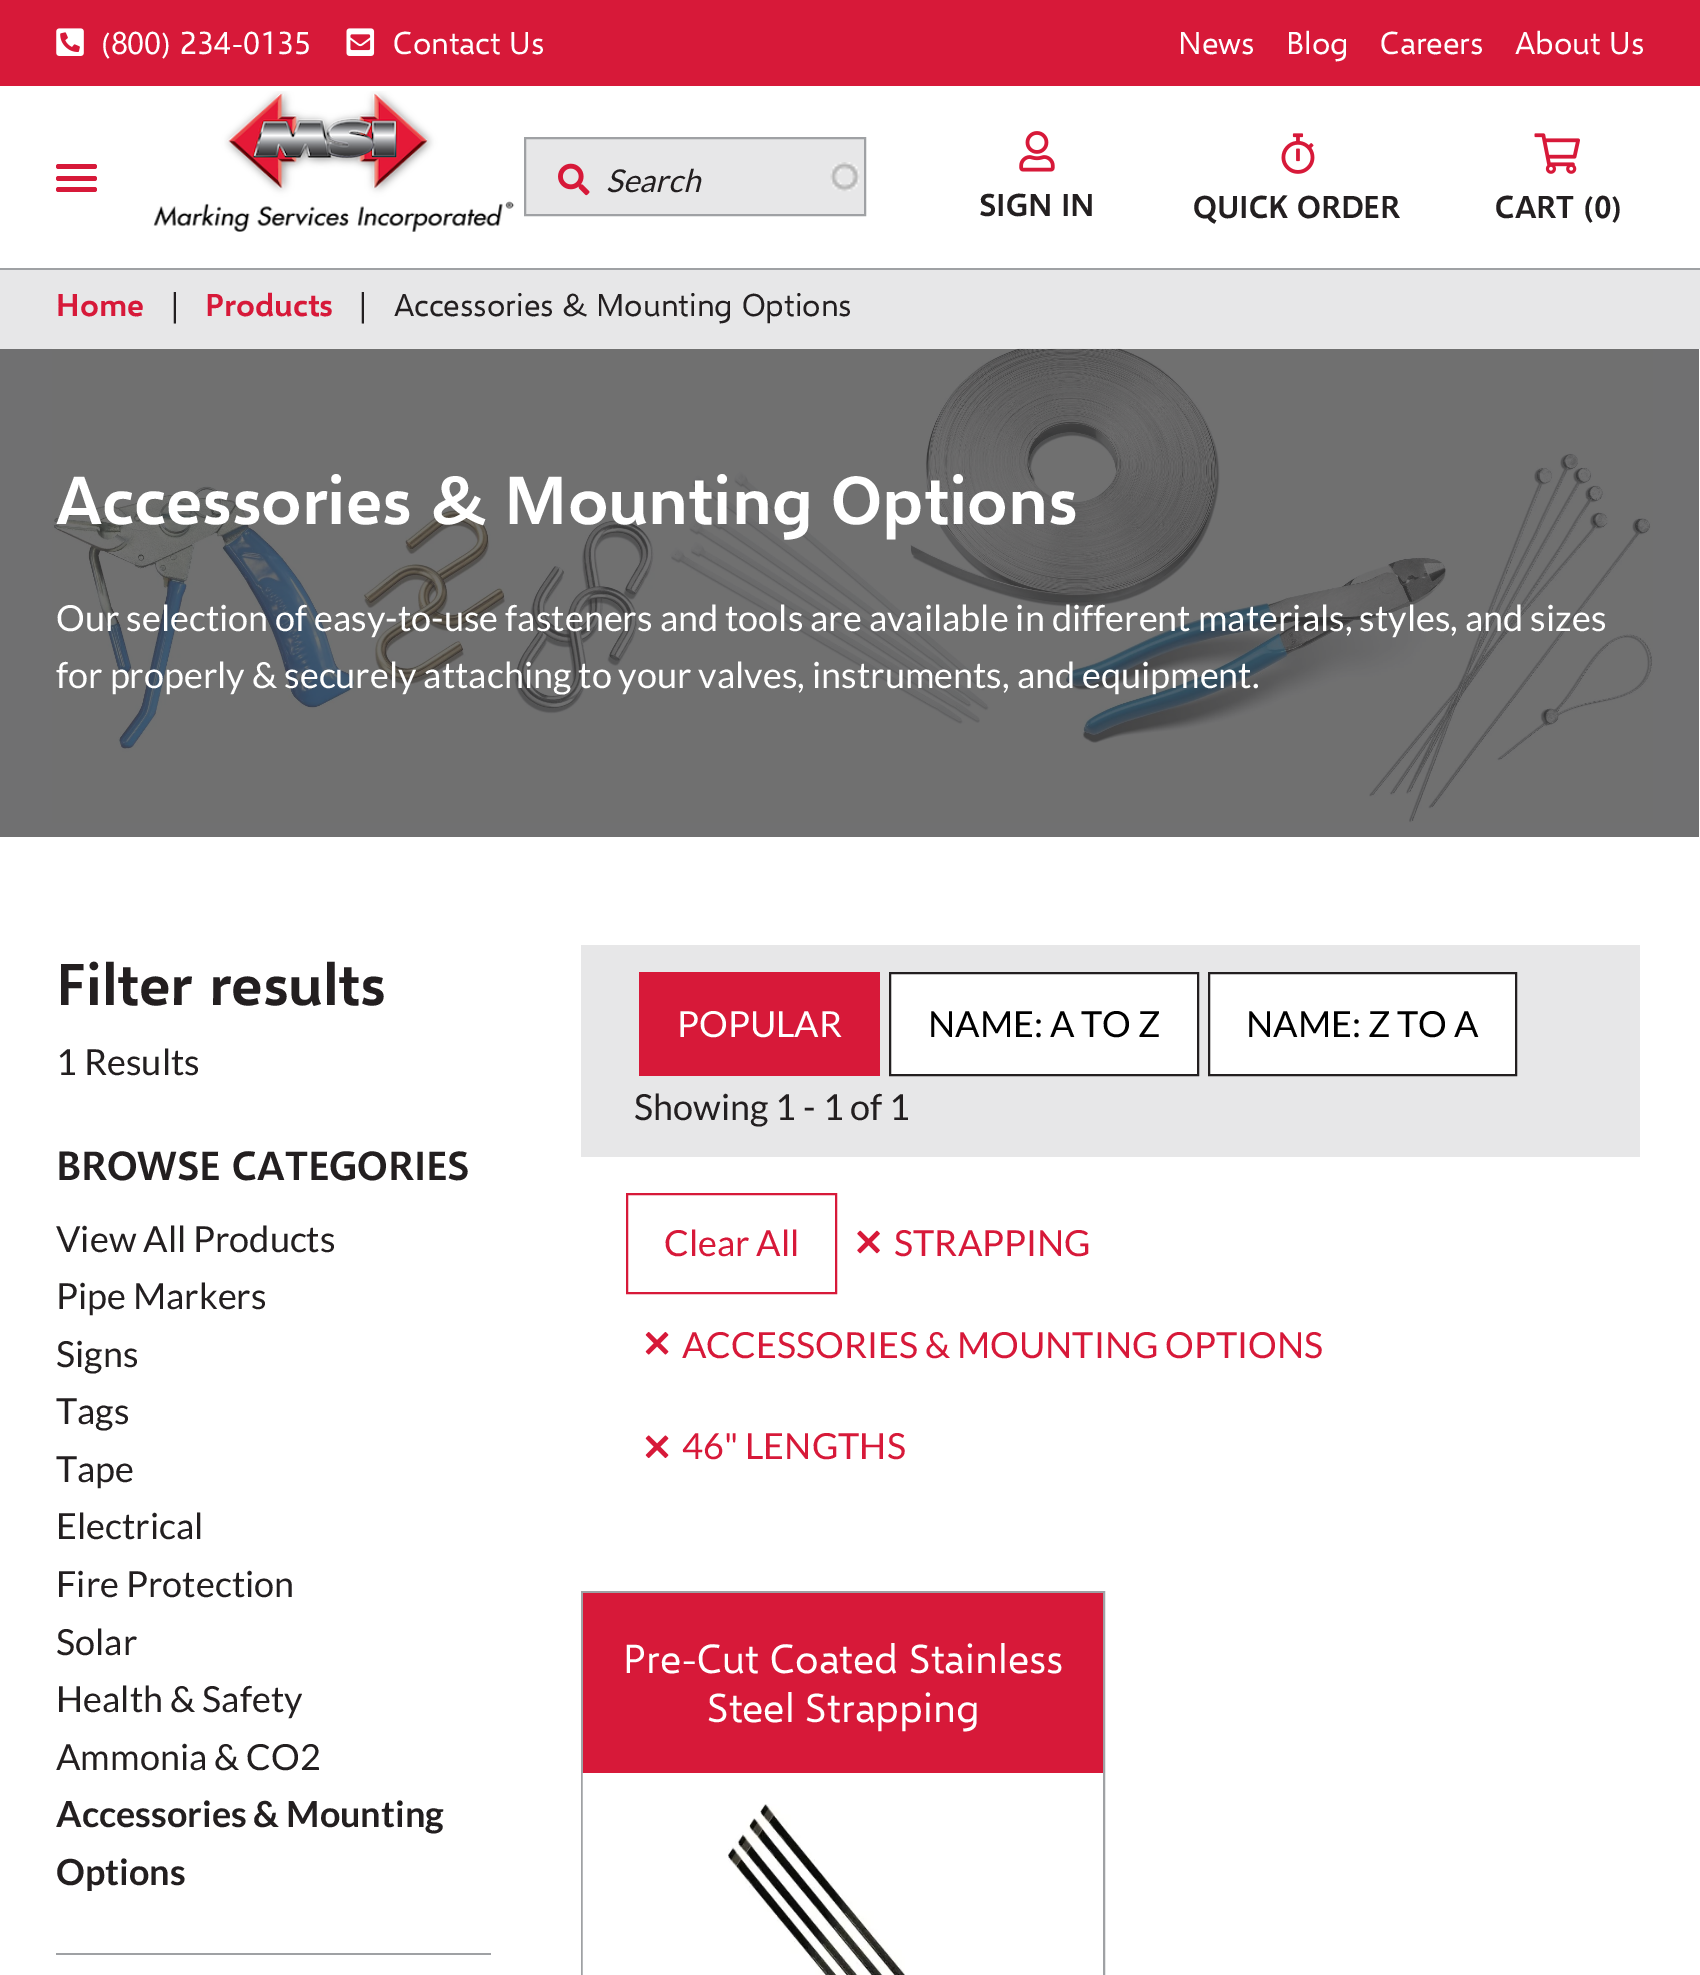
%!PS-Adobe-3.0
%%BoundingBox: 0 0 1700 1975
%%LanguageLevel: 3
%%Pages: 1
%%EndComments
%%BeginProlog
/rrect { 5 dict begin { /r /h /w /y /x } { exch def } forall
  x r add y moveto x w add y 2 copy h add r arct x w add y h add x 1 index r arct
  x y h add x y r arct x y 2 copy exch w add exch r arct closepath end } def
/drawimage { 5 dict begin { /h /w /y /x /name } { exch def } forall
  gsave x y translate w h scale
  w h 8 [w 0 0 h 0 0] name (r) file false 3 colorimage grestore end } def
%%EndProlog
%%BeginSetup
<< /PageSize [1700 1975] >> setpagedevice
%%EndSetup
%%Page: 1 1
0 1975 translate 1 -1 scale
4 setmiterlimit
1 setgray
0 0 1700 1975 rectfill
0.439 0.439 0.443 setrgbcolor
0 349 1699 488 rectfill
0.624 0.631 0.643 setrgbcolor
0 268 1700 2 rectfill
0.843 0.098 0.224 setrgbcolor
0 0 1700 86 rectfill
(images/1.raw) 56 28 28 28 drawimage
(images/2.raw) 346 28 29 28 drawimage
56 164 41 5 2.5 rrect fill
56 176 41 5 2.5 rrect fill
56 187 41 5 2.5 rrect fill
(images/3.raw) 153 91 362 141 drawimage
0.906 0.906 0.91 setrgbcolor
526 139 338 75 rectfill
(images/5.raw) 830 162 30 30 drawimage
0.624 0.631 0.643 setrgbcolor
2 setlinewidth
525 138 340 77 rectstroke
(images/4.raw) 558 163 32 33 drawimage
(images/6.raw) 1019 131 36 41 drawimage
(images/7.raw) 1281 133 34 41 drawimage
(images/8.raw) 1534 133 46 41 drawimage
0.906 0.906 0.91 setrgbcolor
0 270 1700 79 rectfill
(images/9.raw) 52 348 1601 475 drawimage
0.624 0.631 0.643 setrgbcolor
56 1953 435 2 rectfill
0.906 0.906 0.91 setrgbcolor
581 945 1059 212 rectfill
0.843 0.098 0.224 setrgbcolor
639 972 241 104 rectfill
1 setgray
newpath 890 973 moveto 1198 973 lineto 1198 1075 lineto 890 1075 lineto closepath gsave fill grestore
0.137 0.122 0.125 setrgbcolor
stroke
1 setgray
newpath 1209 973 moveto 1516 973 lineto 1516 1075 lineto 1209 1075 lineto closepath gsave fill grestore
0.137 0.122 0.125 setrgbcolor
stroke
0.843 0.098 0.224 setrgbcolor
627 1194 209 99 rectstroke
(images/10.raw) 857 1230 23 24 drawimage
(images/11.raw) 645 1332 24 23 drawimage
(images/12.raw) 645 1435 24 23 drawimage
0.624 0.631 0.643 setrgbcolor
582 1592 522 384 rectstroke
0.843 0.098 0.224 setrgbcolor
583 1593 520 180 rectfill
(images/13.raw) 582 1773 323 202 drawimage
/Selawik-Regular [31.5 0 0 -31.5 0 0] selectfont
1 setgray
101 54 moveto (\(800\) 234-0135) show
393 54 moveto (Contact Us) show
1178 54 moveto (News) show
1286 54 moveto (Blog) show
1380 54 moveto (Careers) show
1515 54 moveto (About Us) show
/Lato-Italic [31.5 0 0 -31.5 0 0] selectfont
0.137 0.122 0.125 setrgbcolor
606 192 moveto (Search) show
/Selawik-SemiBold [31.5 0 0 -31.5 0 0] selectfont
979 216 moveto (SIGN IN) show
1193 218 moveto (QUICK ORDER) show
1495 218 moveto (CART \(0\)) show
0.843 0.098 0.224 setrgbcolor
56 316 moveto (Home) show
/Selawik-Regular [31.5 0 0 -31.5 0 0] selectfont
0.137 0.122 0.125 setrgbcolor
171 316 moveto (|) show
/Selawik-SemiBold [31.5 0 0 -31.5 0 0] selectfont
0.843 0.098 0.224 setrgbcolor
205 316 moveto (Products) show
/Selawik-Regular [31.5 0 0 -31.5 0 0] selectfont
0.137 0.122 0.125 setrgbcolor
359 316 moveto (|) show
394 316 moveto (Accessories & Mounting Options) show
/Selawik-SemiBold [67.5 0 0 -67.5 0 0] selectfont
1 setgray
56 524 moveto (Accessories & Mounting Options) show
/Lato-Regular [36 0 0 -36 0 0] selectfont
56 631 moveto (Our selection of easy-to-use fasteners and tools are available in different materials, styles, and sizes) show
56 688 moveto (for properly & securely attaching to your valves, instruments, and equipment.) show
/Selawik-SemiBold [58.5 0 0 -58.5 0 0] selectfont
0.137 0.122 0.125 setrgbcolor
56 1005 moveto (Filter results) show
/Lato-Regular [36 0 0 -36 0 0] selectfont
56 1075 moveto (1 Results) show
/Selawik-SemiBold [40.5 0 0 -40.5 0 0] selectfont
56 1180 moveto (BROWSE CATEGORIES) show
/Lato-Regular [36 0 0 -36 0 0] selectfont
56 1252 moveto (View All Products) show
56 1309 moveto (Pipe Markers) show
56 1367 moveto (Signs) show
56 1424 moveto (Tags) show
56 1482 moveto (Tape) show
56 1539 moveto (Electrical) show
56 1597 moveto (Fire Protection) show
56 1655 moveto (Solar) show
56 1712 moveto (Health & Safety) show
56 1770 moveto (Ammonia & CO2) show
/Lato-Bold [36 0 0 -36 0 0] selectfont
56 1827 moveto (Accessories & Mounting) show
56 1885 moveto (Options) show
/Lato-Regular [36 0 0 -36 0 0] selectfont
1 setgray
677 1037 moveto (POPULAR) show
0 setgray
928 1037 moveto (NAME: A TO Z) show
1246 1037 moveto (NAME: Z TO A) show
0.137 0.122 0.125 setrgbcolor
634 1120 moveto (Showing 1 - 1 of 1) show
0.843 0.098 0.224 setrgbcolor
664 1256 moveto (Clear All) show
894 1256 moveto (STRAPPING) show
682 1358 moveto (ACCESSORIES & MOUNTING OPTIONS) show
682 1459 moveto (46" LENGTHS) show
/Selawik-Regular [40.5 0 0 -40.5 0 0] selectfont
1 setgray
623 1673 moveto (Pre-Cut Coated Stainless) show
707 1722 moveto (Steel Strapping) show
showpage
%%EOF
